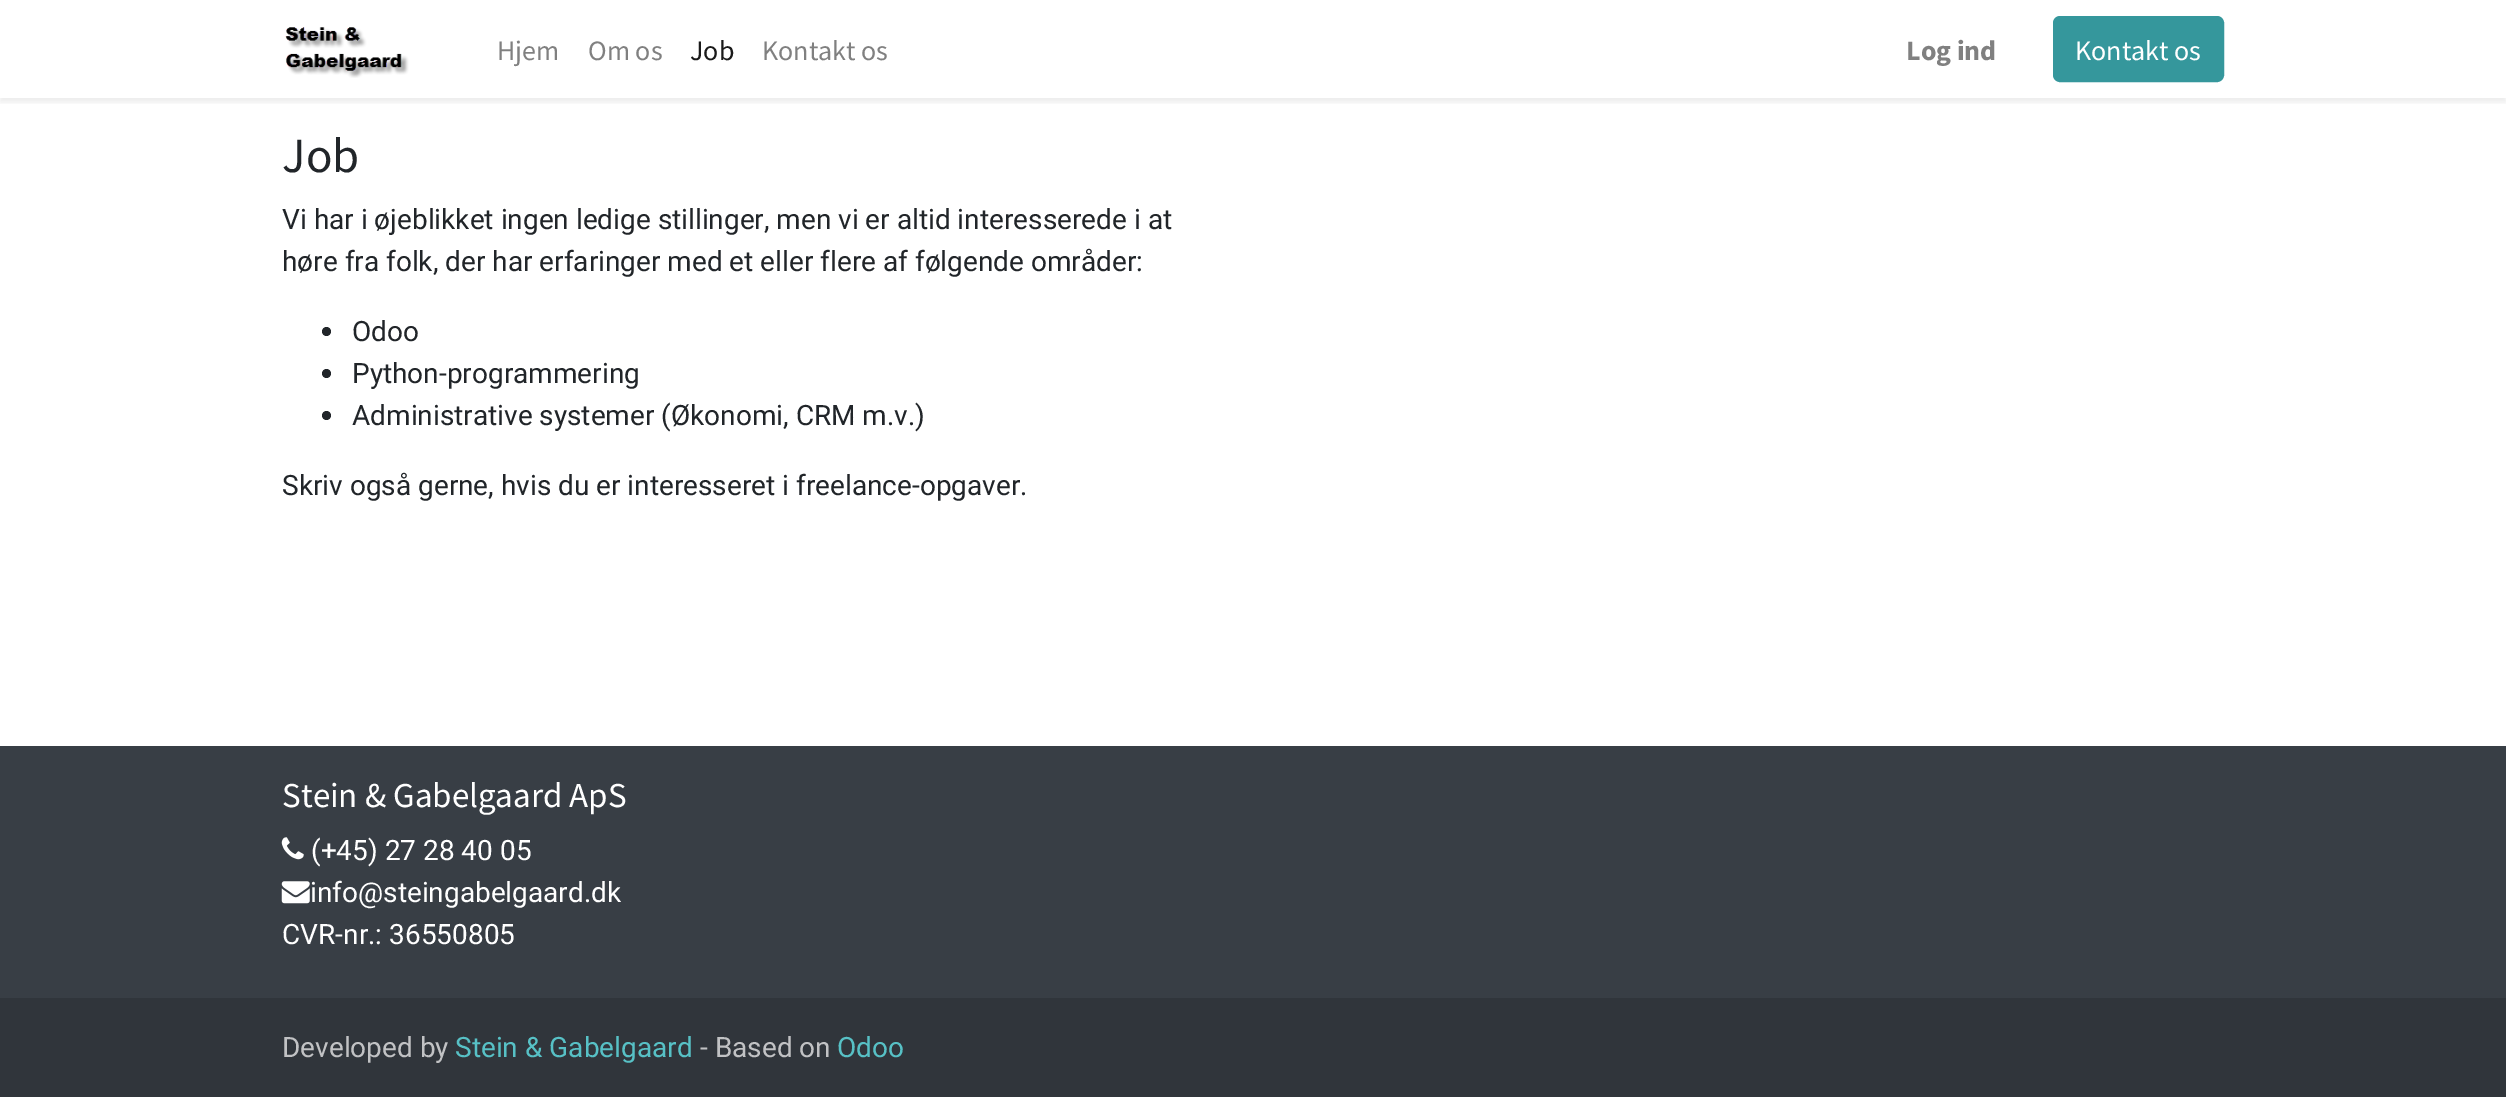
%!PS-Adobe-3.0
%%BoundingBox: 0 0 2506 1097
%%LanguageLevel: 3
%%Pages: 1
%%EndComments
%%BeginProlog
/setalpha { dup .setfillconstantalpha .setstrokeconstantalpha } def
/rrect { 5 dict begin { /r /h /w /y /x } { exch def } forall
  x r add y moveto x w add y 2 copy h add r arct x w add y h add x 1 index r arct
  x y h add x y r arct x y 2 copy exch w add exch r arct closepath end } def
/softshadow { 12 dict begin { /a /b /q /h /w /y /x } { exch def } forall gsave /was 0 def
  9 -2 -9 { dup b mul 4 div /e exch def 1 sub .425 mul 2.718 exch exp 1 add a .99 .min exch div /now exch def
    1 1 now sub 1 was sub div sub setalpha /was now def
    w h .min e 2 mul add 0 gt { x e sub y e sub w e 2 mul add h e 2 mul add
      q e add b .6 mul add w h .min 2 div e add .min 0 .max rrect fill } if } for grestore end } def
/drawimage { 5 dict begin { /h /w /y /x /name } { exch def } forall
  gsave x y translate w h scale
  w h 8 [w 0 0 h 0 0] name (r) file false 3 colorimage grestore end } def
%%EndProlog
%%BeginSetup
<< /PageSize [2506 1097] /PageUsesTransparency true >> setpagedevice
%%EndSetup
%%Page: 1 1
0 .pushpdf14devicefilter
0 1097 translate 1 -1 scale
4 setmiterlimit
1 setgray
0 0 2506 1097 rectfill
gsave
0 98 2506 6 rectclip
0 setgray
0 4 2506 98 0 3.5 0.07 softshadow
grestore
(images/1.raw) 285 27 124 51 drawimage
0.208 0.592 0.612 setrgbcolor
2054 17 169 64 6 rrect gsave fill grestore
2 setlinewidth
stroke
0.129 0.145 0.161 setrgbcolor
newpath 326.5 331.5 4.5 0 360 arc closepath fill
newpath 326.5 373.5 4.5 0 360 arc closepath fill
newpath 326.5 415.5 4.5 0 360 arc closepath fill
0.22 0.243 0.271 setrgbcolor
0 746 2506 252 rectfill
(images/2.raw) 281 837 23 23 drawimage
(images/3.raw) 281 881 29 23 drawimage
0.188 0.208 0.231 setrgbcolor
0 998 2506 99 rectfill
/SourceSansPro-Regular [28 0 0 -28 0 0] selectfont
0.502 setgray
497 60 moveto (Hjem) show
588 60 moveto (Om os) show
0.102 setgray
690 60 moveto (Job) show
0.502 setgray
762 60 moveto (Kontakt os) show
/SourceSansPro-Bold [28 0 0 -28 0 0] selectfont
1906 60 moveto (Log ind) show
/SourceSansPro-Regular [28 0 0 -28 0 0] selectfont
1 setgray
2075 60 moveto (Kontakt os) show
/SourceSansPro-Regular [49 0 0 -49 0 0] selectfont
0.129 0.145 0.161 setrgbcolor
282 172 moveto (Job) show
/Roboto-Regular [28 0 0 -28 0 0] selectfont
282 229 moveto (Vi har i øjeblikket ingen ledige stillinger, men vi er altid interesserede i at) show
282 271 moveto (høre fra folk, der har erfaringer med et eller flere af følgende områder:) show
352 341 moveto (Odoo) show
352 383 moveto (Python-programmering) show
352 425 moveto (Administrative systemer \(Økonomi, CRM m.v.\)) show
282 495 moveto (Skriv også gerne, hvis du er interesseret i freelance-opgaver.) show
/SourceSansPro-Regular [35 0 0 -35 0 0] selectfont
1 setgray
282 807 moveto (Stein & Gabelgaard ApS) show
/Roboto-Regular [28 0 0 -28 0 0] selectfont
311 860 moveto (\(+45\) 27 28 40 05) show
310 902 moveto (info@steingabelgaard.dk) show
282 944 moveto (CVR-nr.: 36550805) show
0.757 0.761 0.769 setrgbcolor
282 1057 moveto (Developed by) show
0.341 0.757 0.776 setrgbcolor
455 1057 moveto (Stein & Gabelgaard) show
0.757 0.761 0.769 setrgbcolor
700 1057 moveto (- Based on) show
0.341 0.757 0.776 setrgbcolor
837 1057 moveto (Odoo) show
.poppdf14devicefilter showpage
%%EOF
